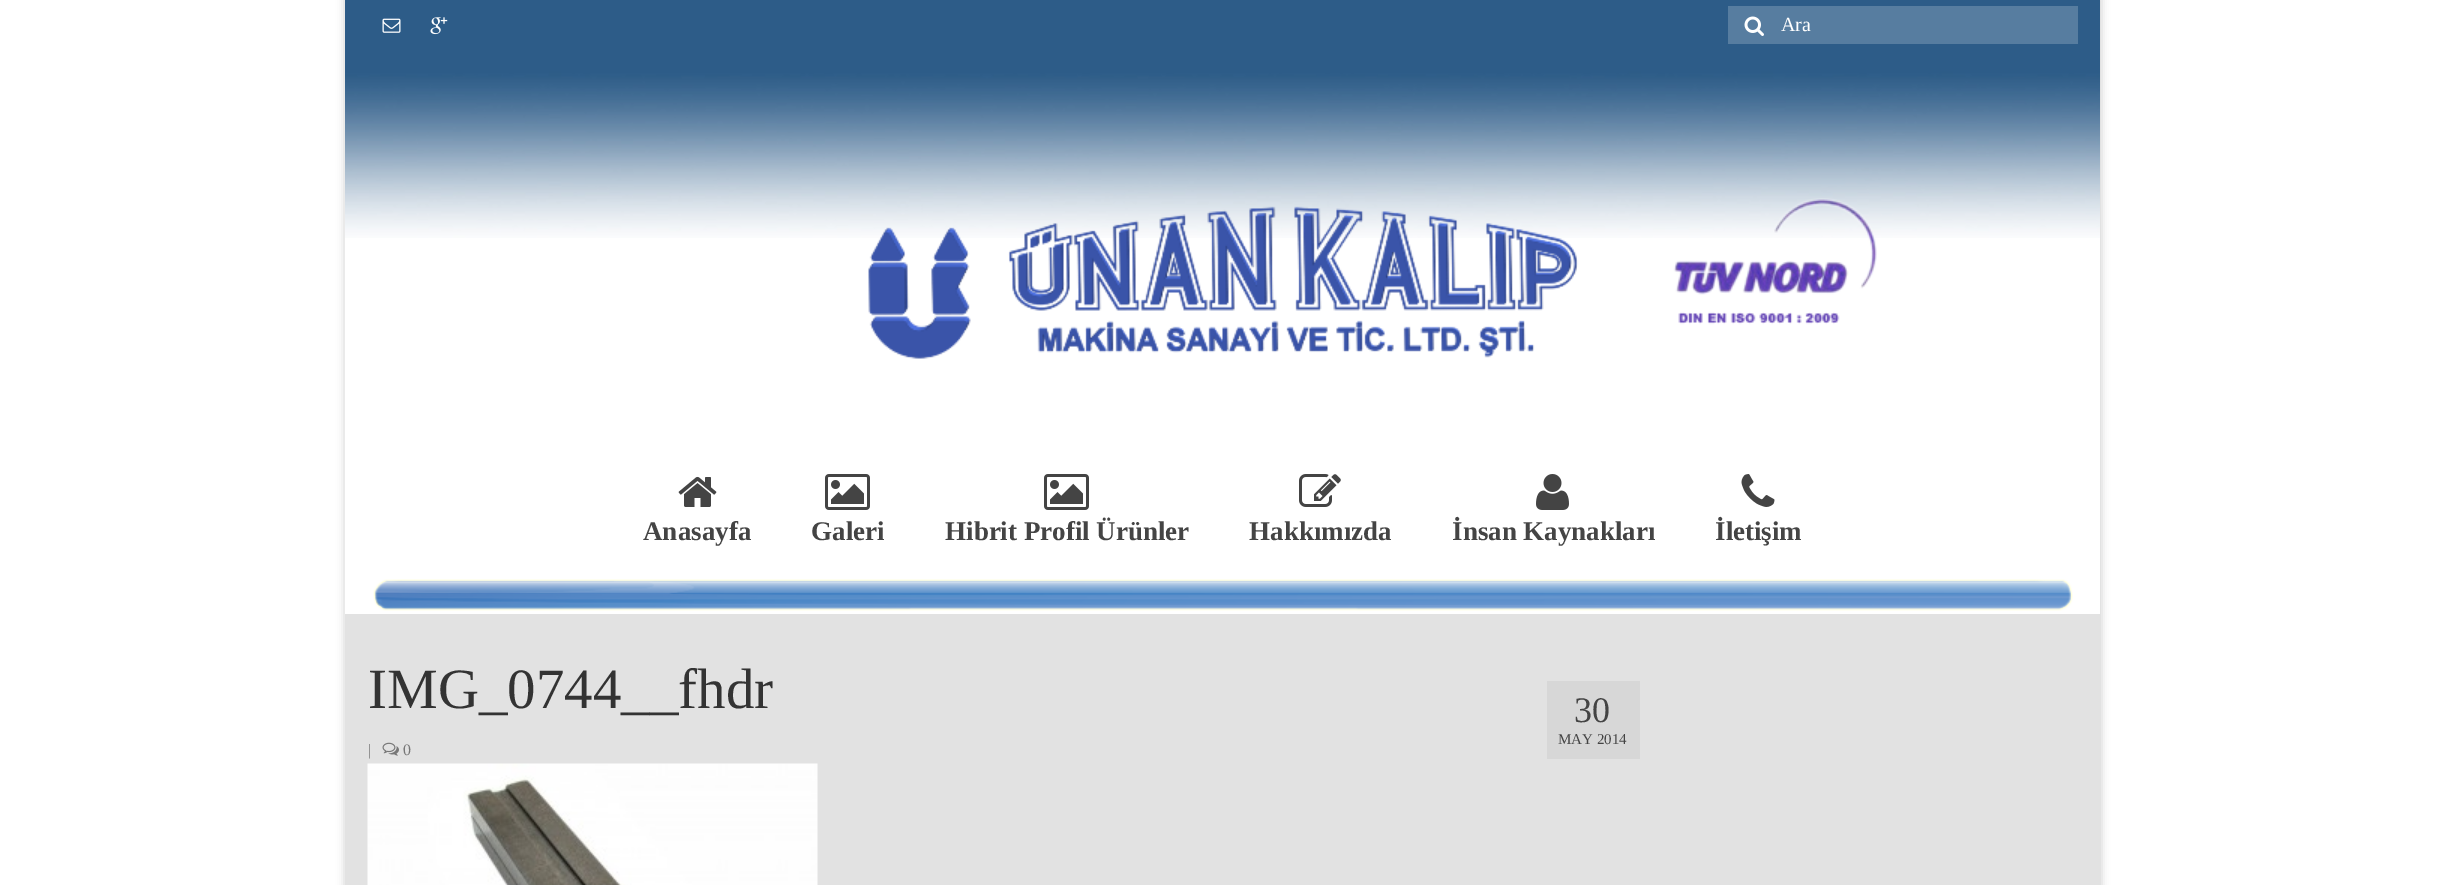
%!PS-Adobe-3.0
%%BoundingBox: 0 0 2445 885
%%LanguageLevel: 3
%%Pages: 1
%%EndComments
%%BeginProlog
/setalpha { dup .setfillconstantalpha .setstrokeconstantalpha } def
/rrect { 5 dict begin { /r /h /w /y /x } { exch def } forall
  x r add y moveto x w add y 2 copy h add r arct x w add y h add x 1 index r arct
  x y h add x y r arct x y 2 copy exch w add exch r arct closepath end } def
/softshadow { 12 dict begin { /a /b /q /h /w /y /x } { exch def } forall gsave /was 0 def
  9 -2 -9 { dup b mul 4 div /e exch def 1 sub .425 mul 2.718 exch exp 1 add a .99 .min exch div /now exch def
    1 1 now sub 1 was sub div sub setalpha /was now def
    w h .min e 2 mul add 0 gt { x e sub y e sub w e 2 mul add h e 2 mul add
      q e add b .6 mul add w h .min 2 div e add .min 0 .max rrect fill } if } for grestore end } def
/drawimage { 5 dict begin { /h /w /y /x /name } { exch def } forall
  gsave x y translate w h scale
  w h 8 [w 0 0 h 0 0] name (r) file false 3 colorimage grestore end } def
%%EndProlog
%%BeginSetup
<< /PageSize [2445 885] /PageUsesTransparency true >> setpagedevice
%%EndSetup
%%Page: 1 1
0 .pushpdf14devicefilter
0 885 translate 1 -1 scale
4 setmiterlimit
1 setgray
0 0 2445 885 rectfill
gsave
newpath 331 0 moveto 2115 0 lineto 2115 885 lineto 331 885 lineto closepath 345 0 moveto 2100 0 lineto 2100 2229 lineto 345 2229 lineto closepath eoclip newpath
0 setgray
344 -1 1758 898 0 4 0.16 softshadow
grestore
(images/1.raw) 345 0 1755 238 drawimage
(images/2.raw) 382 18 19 15 drawimage
(images/3.raw) 430 17 18 18 drawimage
0.341 0.49 0.627 setrgbcolor
1728 6 350 38 rectfill
(images/4.raw) 1744 16 20 20 drawimage
(images/5.raw) 868 198 1009 161 drawimage
(images/6.raw) 678 476 39 31 drawimage
(images/7.raw) 825 474 45 36 drawimage
(images/7.raw) 1044 474 45 36 drawimage
(images/8.raw) 1299 474 42 33 drawimage
(images/9.raw) 1536 474 33 36 drawimage
(images/10.raw) 1741 474 34 33 drawimage
(images/11.raw) 373 579 1700 32 drawimage
0.886 setgray
345 614 1755 271 rectfill
(images/12.raw) 382 742 17 14 drawimage
0.843 setgray
1547 681 93 78 rectfill
(images/13.raw) 367 763 451 122 drawimage
/LiberationSerif-Regular [20 0 0 -20 0 0] selectfont
1 setgray
1781 31 moveto (Ara) show
/LiberationSerif-Bold [27 0 0 -27 0 0] selectfont
0.267 setgray
643 540 moveto (Anasayfa) show
811 540 moveto (Galeri) show
945 540 moveto (Hibrit Profil Ürünler) show
1249 540 moveto (Hakkımızda) show
1452 540 moveto (İnsan Kaynakları) show
1715 540 moveto (İletişim) show
/LiberationSerif-Regular [57 0 0 -57 0 0] selectfont
0.2 setgray
368 708 moveto (IMG_0744__fhdr) show
/LiberationSerif-Regular [16 0 0 -16 0 0] selectfont
0.467 setgray
368 755 moveto (|) show
403 755 moveto (0) show
/LiberationSerif-Regular [36 0 0 -36 0 0] selectfont
0.267 setgray
1574 722 moveto (30) show
/LiberationSerif-Regular [15 0 0 -15 0 0] selectfont
1558 744 moveto (MAY 2014) show
.poppdf14devicefilter showpage
%%EOF
